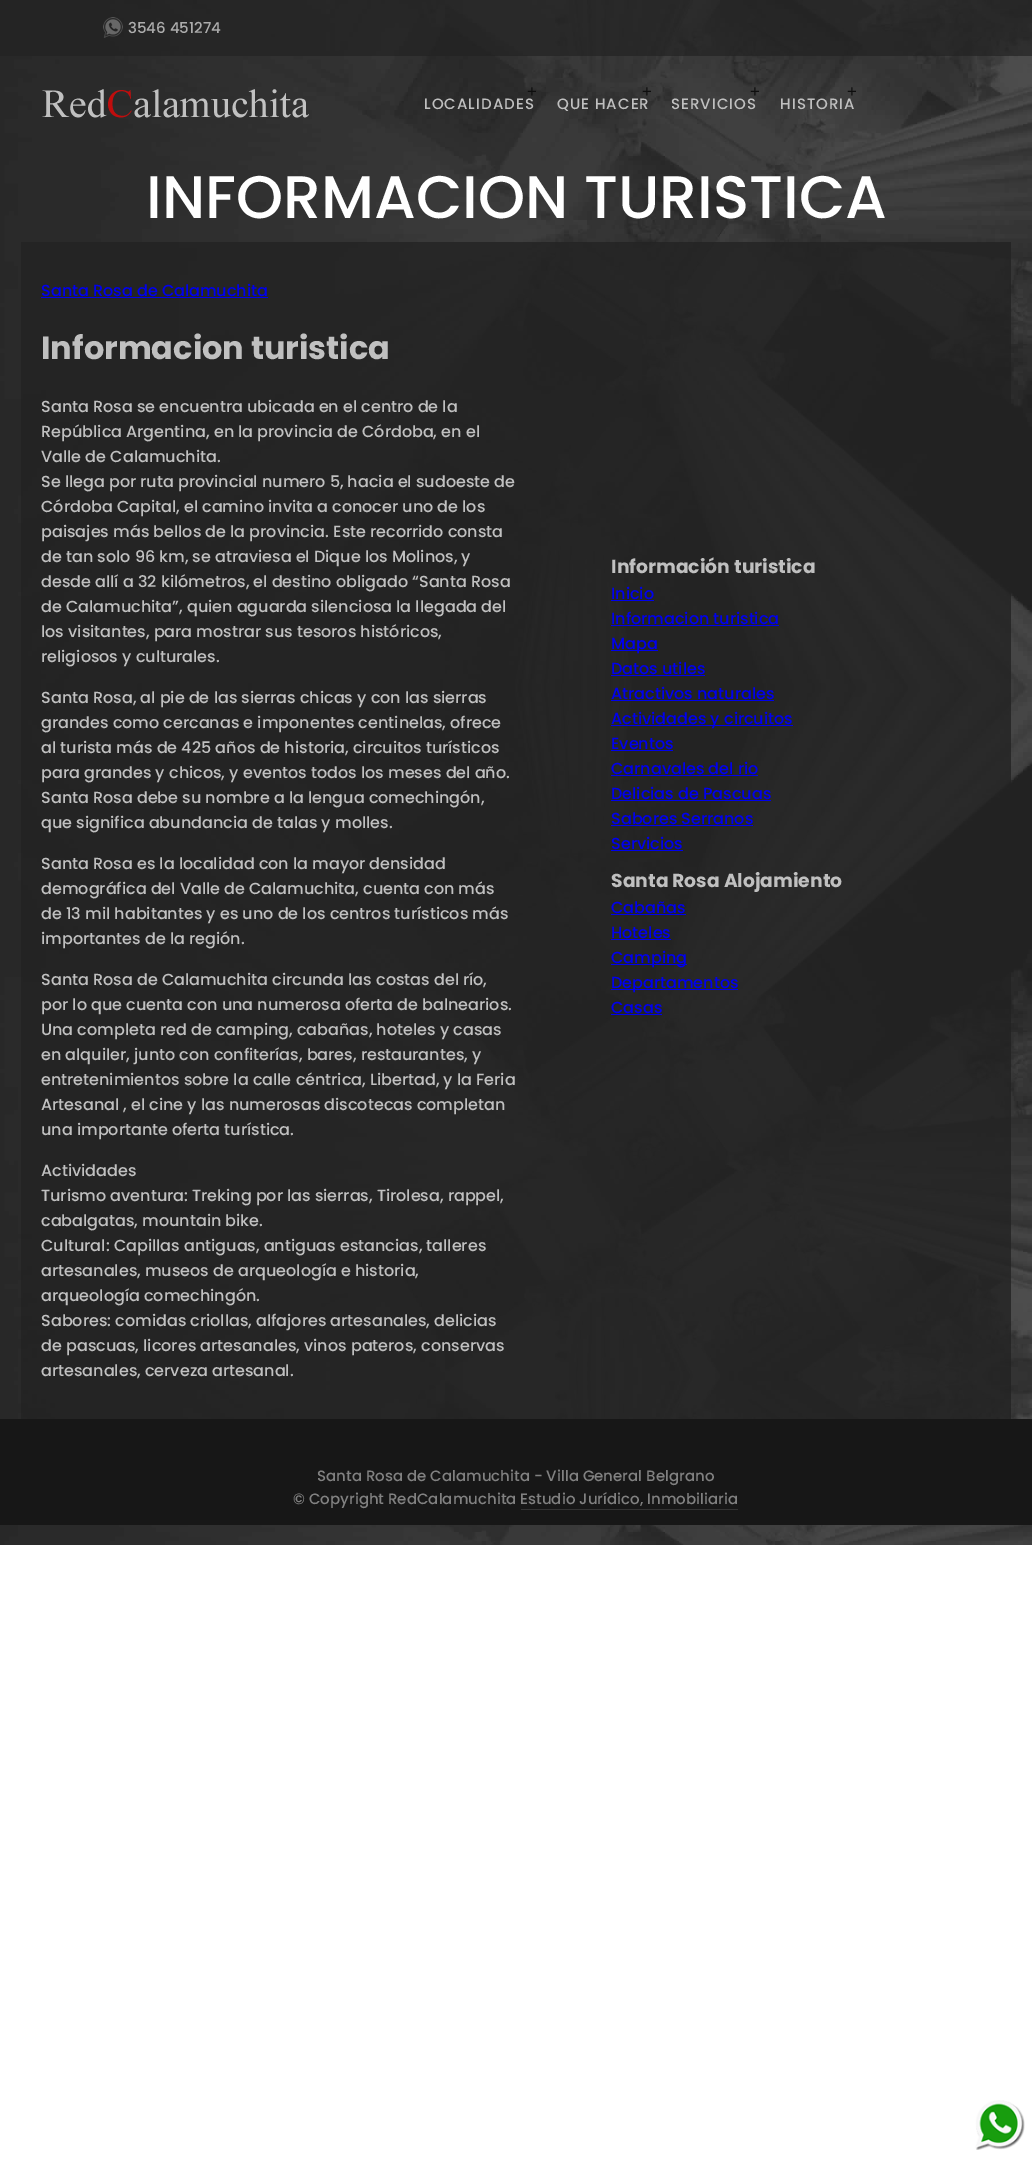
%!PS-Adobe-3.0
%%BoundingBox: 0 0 1032 2159
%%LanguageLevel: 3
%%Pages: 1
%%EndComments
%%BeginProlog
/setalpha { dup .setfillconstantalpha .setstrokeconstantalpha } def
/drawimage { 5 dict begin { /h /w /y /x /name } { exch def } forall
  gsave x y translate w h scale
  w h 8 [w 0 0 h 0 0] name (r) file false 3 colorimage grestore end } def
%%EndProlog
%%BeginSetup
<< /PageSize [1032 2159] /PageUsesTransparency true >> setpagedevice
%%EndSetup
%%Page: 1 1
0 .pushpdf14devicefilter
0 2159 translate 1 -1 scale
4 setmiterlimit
1 setgray
0 0 1032 2159 rectfill
(images/1.raw) 0 0 1032 1545 drawimage
0.7 setalpha
0.133 setgray
0 0 1032 56 rectfill
1 setalpha
(images/2.raw) 103 17 20 21 drawimage
(images/3.raw) 42 89 267 29 drawimage
0.8 setalpha
21 242 990 1177 rectfill
1 setalpha
0 0 0.933 setrgbcolor
41 297 227 1 rectfill
611 600 43 1 rectfill
611 625 168 1 rectfill
611 650 47 1 rectfill
611 675 94 1 rectfill
611 700 163 1 rectfill
611 725 182 1 rectfill
611 750 62 1 rectfill
611 775 147 1 rectfill
611 800 160 1 rectfill
611 825 142 1 rectfill
611 850 72 1 rectfill
611 914 75 1 rectfill
611 939 60 1 rectfill
611 964 76 1 rectfill
611 989 127 1 rectfill
611 1014 51 1 rectfill
0.09 setgray
0 1419 1032 106 rectfill
0.2 setgray
521 1509 217 1 rectfill
(images/4.raw) 975 2100 50 50 drawimage
/Poppins-Medium [15 0 0 -15 0 0] selectfont
0.675 setgray
128 33 moveto (3546 451274) show
/LiberationSans-Regular [17 0 0 -17 0 0] selectfont
0.055 setgray
527 97 moveto 1 0 (+) ashow
/Poppins-Medium [15 0 0 -15 0 0] selectfont
0.753 setgray
424 109 moveto 1 0 (LOCALIDADES) ashow
/LiberationSans-Regular [17 0 0 -17 0 0] selectfont
0.055 setgray
642 97 moveto 1 0 (+) ashow
/Poppins-Medium [15 0 0 -15 0 0] selectfont
0.753 setgray
557 109 moveto 1 0 (QUE HACER) ashow
/LiberationSans-Regular [17 0 0 -17 0 0] selectfont
0.055 setgray
750 97 moveto 1 0 (+) ashow
/Poppins-Medium [15 0 0 -15 0 0] selectfont
0.753 setgray
671 109 moveto 1 0 (SERVICIOS) ashow
/LiberationSans-Regular [17 0 0 -17 0 0] selectfont
0.055 setgray
847 97 moveto 1 0 (+) ashow
/Poppins-Medium [15 0 0 -15 0 0] selectfont
0.753 setgray
780 109 moveto 1 0 (HISTORIA) ashow
/Poppins-Medium [60 0 0 -60 0 0] selectfont
1 setgray
146 218 moveto (INFORMACION TURISTICA) show
/Poppins-Medium [16 0 0 -16 0 0] selectfont
0 0 0.933 setrgbcolor
41 296 moveto (Santa Rosa de Calamuchita) show
/Poppins-Bold [32 0 0 -32 0 0] selectfont
0.753 setgray
41 359 moveto (Informacion turistica) show
/Poppins-Medium [16 0 0 -16 0 0] selectfont
41 412 moveto (Santa Rosa se encuentra ubicada en el centro de la) show
41 437 moveto (República Argentina, en la provincia de Córdoba, en el) show
41 462 moveto (Valle de Calamuchita.) show
41 487 moveto (Se llega por ruta provincial numero 5, hacia el sudoeste de) show
41 512 moveto (Córdoba Capital, el camino invita a conocer uno de los) show
41 537 moveto (paisajes más bellos de la provincia. Este recorrido consta) show
41 562 moveto (de tan solo 96 km, se atraviesa el Dique los Molinos, y) show
41 587 moveto (desde allí a 32 kilómetros, el destino obligado “Santa Rosa) show
41 612 moveto (de Calamuchita”, quien aguarda silenciosa la llegada del) show
41 637 moveto (los visitantes, para mostrar sus tesoros históricos,) show
41 662 moveto (religiosos y culturales.) show
41 703 moveto (Santa Rosa, al pie de las sierras chicas y con las sierras) show
41 728 moveto (grandes como cercanas e imponentes centinelas, ofrece) show
41 753 moveto (al turista más de 425 años de historia, circuitos turísticos) show
41 778 moveto (para grandes y chicos, y eventos todos los meses del año.) show
41 803 moveto (Santa Rosa debe su nombre a la lengua comechingón,) show
41 828 moveto (que significa abundancia de talas y molles.) show
41 869 moveto (Santa Rosa es la localidad con la mayor densidad) show
41 894 moveto (demográfica del Valle de Calamuchita, cuenta con más) show
41 919 moveto (de 13 mil habitantes y es uno de los centros turísticos más) show
41 944 moveto (importantes de la región.) show
41 985 moveto (Santa Rosa de Calamuchita circunda las costas del río,) show
41 1010 moveto (por lo que cuenta con una numerosa oferta de balnearios.) show
41 1035 moveto (Una completa red de camping, cabañas, hoteles y casas) show
41 1060 moveto (en alquiler, junto con confiterías, bares, restaurantes, y) show
41 1085 moveto (entretenimientos sobre la calle céntrica, Libertad, y la Feria) show
41 1110 moveto (Artesanal , el cine y las numerosas discotecas completan) show
41 1135 moveto (una importante oferta turística.) show
41 1176 moveto (Actividades) show
41 1201 moveto (Turismo aventura: Treking por las sierras, Tirolesa, rappel,) show
41 1226 moveto (cabalgatas, mountain bike.) show
41 1251 moveto (Cultural: Capillas antiguas, antiguas estancias, talleres) show
41 1276 moveto (artesanales, museos de arqueología e historia,) show
41 1301 moveto (arqueología comechingón.) show
41 1326 moveto (Sabores: comidas criollas, alfajores artesanales, delicias) show
41 1351 moveto (de pascuas, licores artesanales, vinos pateros, conservas) show
41 1376 moveto (artesanales, cerveza artesanal.) show
/Poppins-Bold [18.75 0 0 -18.75 0 0] selectfont
611 573 moveto (Información turistica) show
/Poppins-Medium [16 0 0 -16 0 0] selectfont
0 0 0.933 setrgbcolor
611 599 moveto (Inicio) show
611 624 moveto (Informacion turistica) show
611 649 moveto (Mapa) show
611 674 moveto (Datos utiles) show
611 699 moveto (Atractivos naturales) show
611 724 moveto (Actividades y circuitos) show
611 749 moveto (Eventos) show
611 774 moveto (Carnavales del rio) show
611 799 moveto (Delicias de Pascuas) show
611 824 moveto (Sabores Serranos) show
611 849 moveto (Servicios) show
/Poppins-Bold [18.75 0 0 -18.75 0 0] selectfont
0.753 setgray
611 887 moveto (Santa Rosa Alojamiento) show
/Poppins-Medium [16 0 0 -16 0 0] selectfont
0 0 0.933 setrgbcolor
611 913 moveto (Cabañas) show
611 938 moveto (Hoteles) show
611 963 moveto (Camping) show
611 988 moveto (Departamentos) show
611 1013 moveto (Casas) show
/Poppins-Medium [15 0 0 -15 0 0] selectfont
0.506 setgray
317 1481 moveto (Santa Rosa de Calamuchita - Villa General Belgrano) show
293 1504 moveto (© Copyright RedCalamuchita Estudio Jurídico, Inmobiliaria) show
.poppdf14devicefilter showpage
%%EOF
